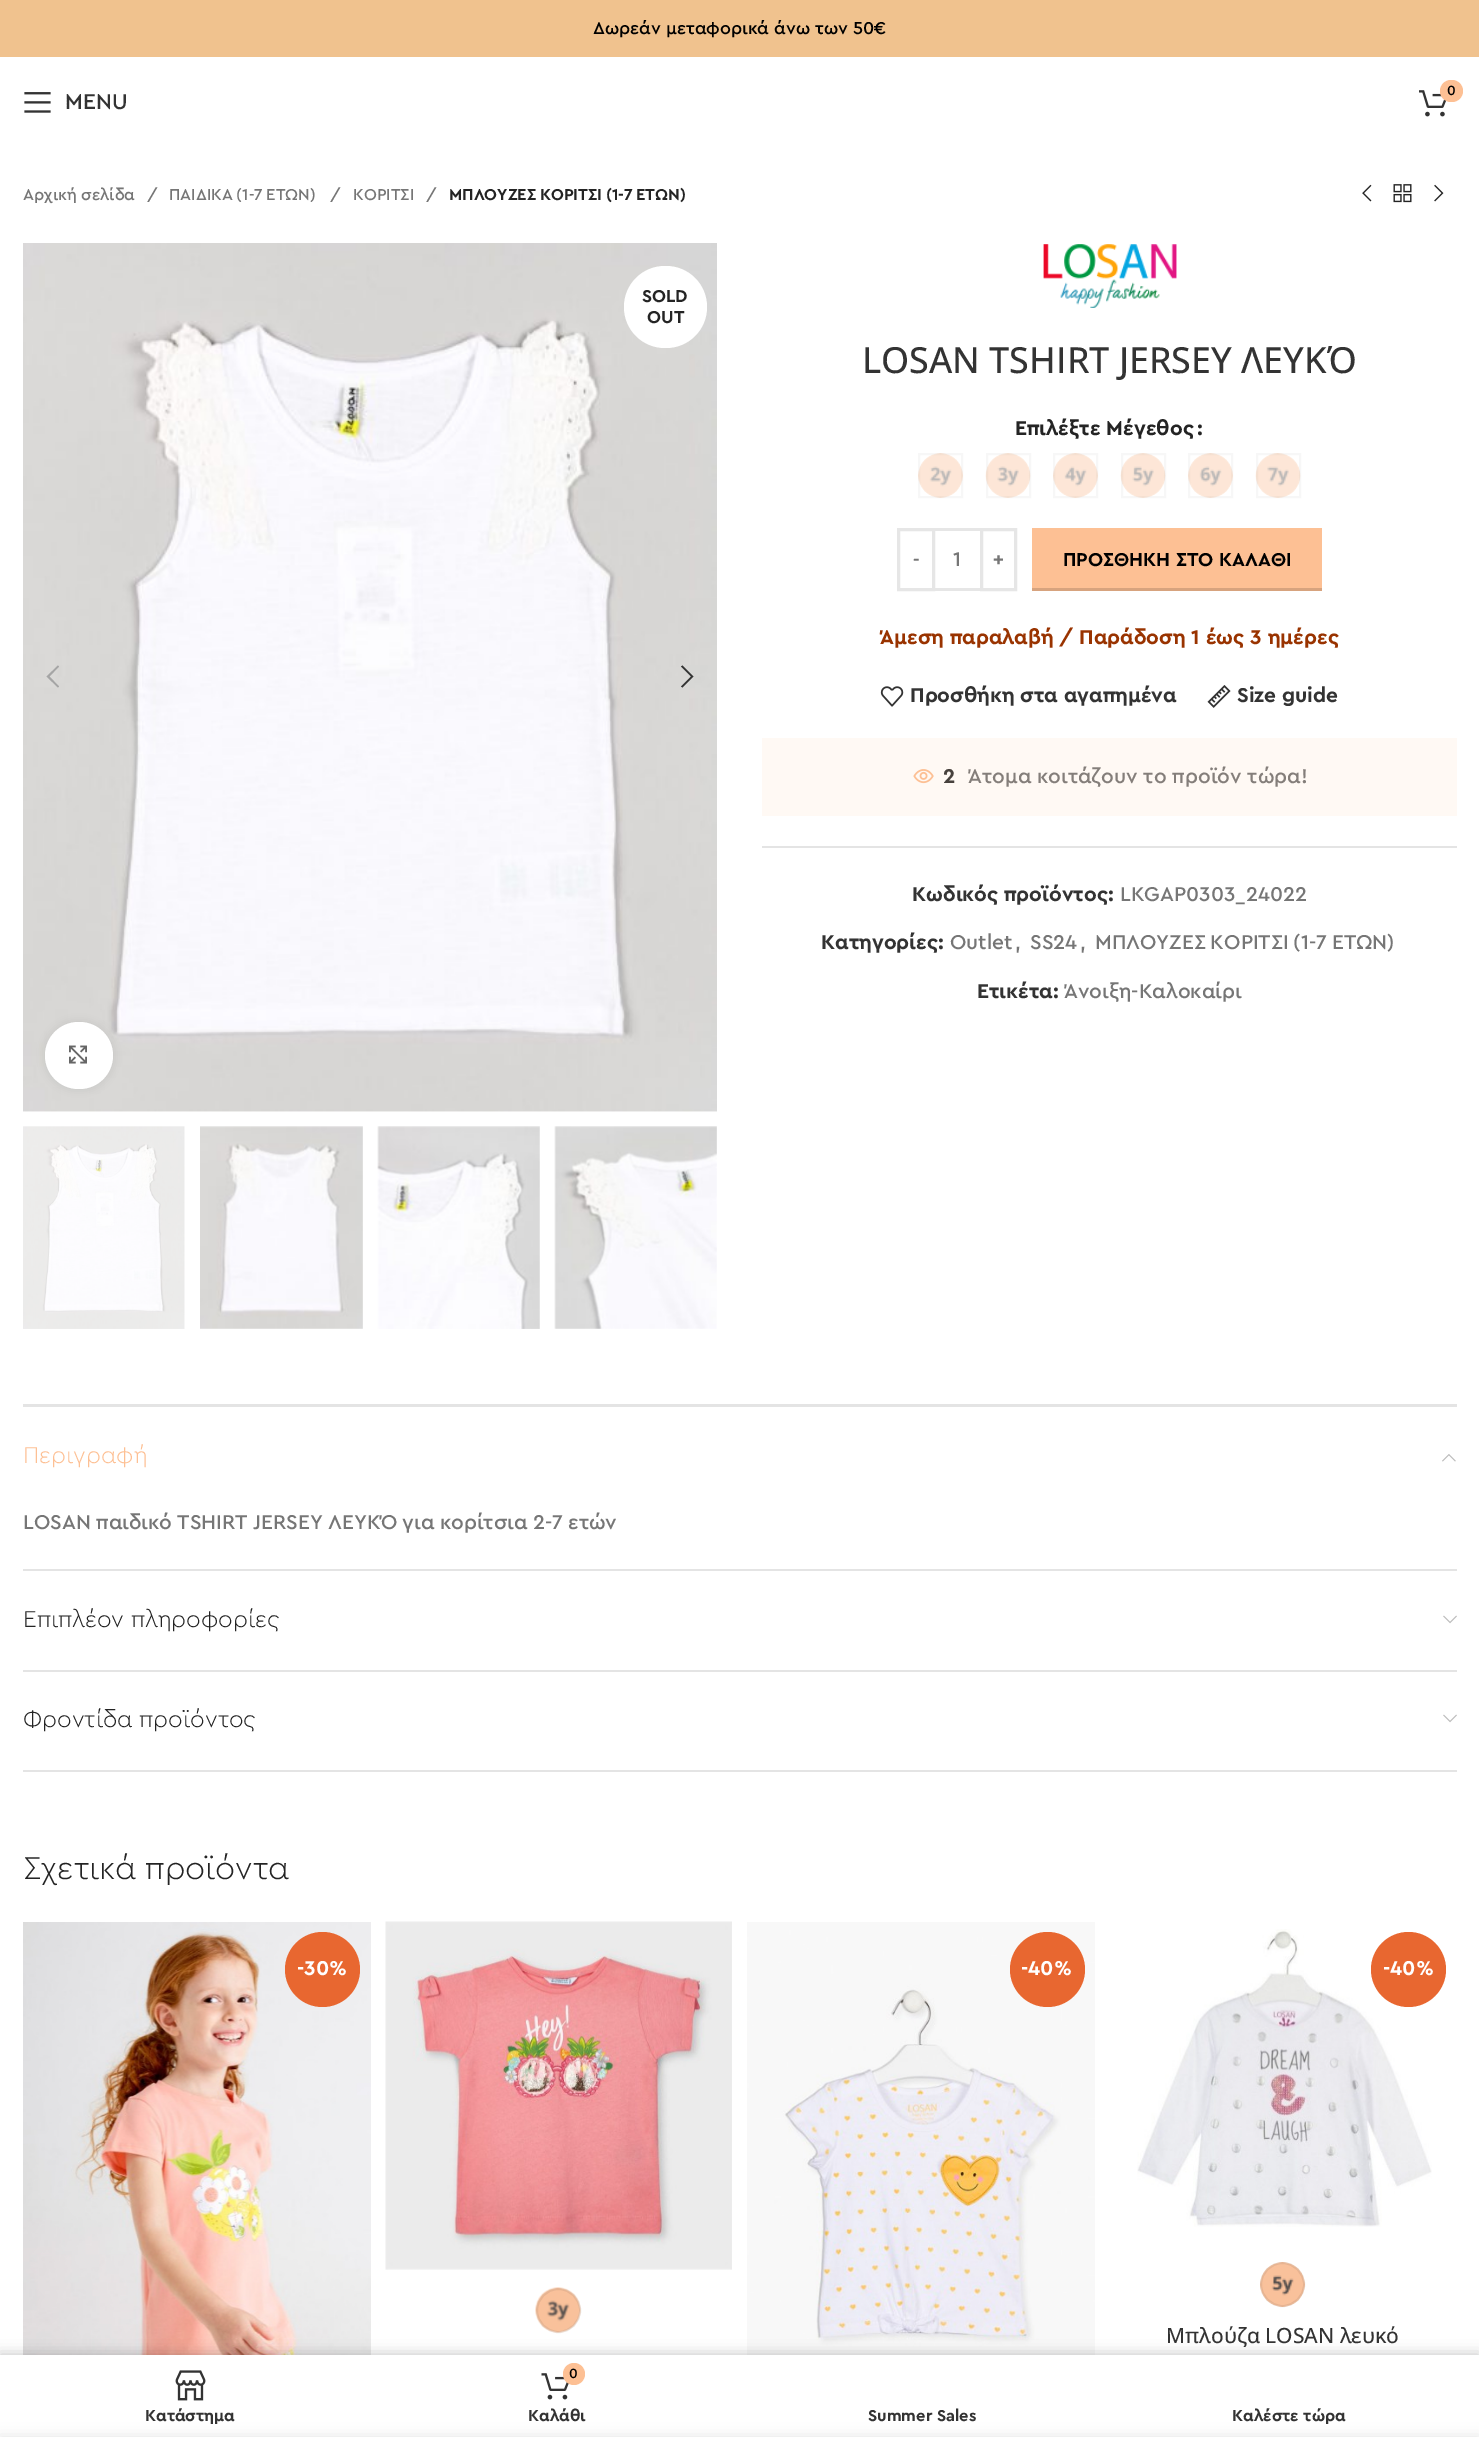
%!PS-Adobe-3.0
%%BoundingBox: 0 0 1479 2437
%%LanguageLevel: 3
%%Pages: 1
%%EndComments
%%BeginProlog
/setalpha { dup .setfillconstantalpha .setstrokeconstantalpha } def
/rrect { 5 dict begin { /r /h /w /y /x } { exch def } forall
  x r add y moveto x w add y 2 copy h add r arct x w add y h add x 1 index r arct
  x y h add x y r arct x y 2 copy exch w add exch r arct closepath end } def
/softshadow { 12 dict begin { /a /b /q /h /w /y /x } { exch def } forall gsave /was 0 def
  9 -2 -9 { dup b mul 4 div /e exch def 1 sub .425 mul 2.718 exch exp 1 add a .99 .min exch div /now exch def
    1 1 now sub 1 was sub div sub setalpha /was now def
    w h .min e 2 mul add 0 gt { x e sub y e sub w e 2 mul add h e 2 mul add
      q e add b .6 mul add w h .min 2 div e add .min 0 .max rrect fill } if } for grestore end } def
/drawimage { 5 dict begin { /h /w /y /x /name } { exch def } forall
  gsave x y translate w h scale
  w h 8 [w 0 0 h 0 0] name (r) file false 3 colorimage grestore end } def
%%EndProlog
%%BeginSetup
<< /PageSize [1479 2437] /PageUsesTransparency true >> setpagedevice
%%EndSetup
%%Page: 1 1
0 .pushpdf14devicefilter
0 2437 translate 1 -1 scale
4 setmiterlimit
1 setgray
0 0 1479 2437 rectfill
1 0.976 0.957 setrgbcolor
762 738 695 78 rectfill
0.941 0.761 0.557 setrgbcolor
0 0 1479 57 rectfill
(images/1.raw) 1419 90 28 27 drawimage
0.992 0.753 0.58 setrgbcolor
1440 80 23 22 11 rrect fill
(images/2.raw) 24 92 27 21 drawimage
(images/3.raw) 1362 184 10 18 drawimage
(images/4.raw) 1393 184 19 19 drawimage
(images/5.raw) 1434 184 10 18 drawimage
(images/6.raw) 23 243 694 869 drawimage
1 setgray
624 266 83 82 41 rrect fill
0.647 setgray
newpath 59 666.5 moveto 58 665.5 lineto 46.5 676.5 lineto 58 687.5 lineto 59 686.5 lineto 49.5 676.5 lineto closepath fill
0.2 setgray
newpath 681 666.5 moveto 691 676.5 lineto 681 686.5 lineto 682.5 687.5 lineto 693.5 676.5 lineto 682.5 665.5 lineto closepath fill
0 setgray
45 1022 68 67 33.5 4 0.08 softshadow
1 setgray
45 1022 68 67 33.5 rrect fill
(images/7.raw) 69 1045 18 19 drawimage
(images/8.raw) 23 1126 162 203 drawimage
(images/9.raw) 200 1126 163 203 drawimage
(images/10.raw) 377 1126 163 203 drawimage
(images/11.raw) 554 1126 163 203 drawimage
(images/12.raw) 1043 244 134 64 drawimage
(images/13.raw) 918 453 45 45 drawimage
0.03 setalpha
0 setgray
2 setlinewidth
919 454 43 43 rectstroke
1 setalpha
(images/14.raw) 985 453 46 45 drawimage
0.03 setalpha
987 454 43 43 rectstroke
1 setalpha
(images/15.raw) 1053 453 45 45 drawimage
0.03 setalpha
1054 454 43 43 rectstroke
1 setalpha
(images/16.raw) 1120 453 46 45 drawimage
0.03 setalpha
1122 454 43 43 rectstroke
1 setalpha
(images/17.raw) 1188 453 45 45 drawimage
0.03 setalpha
1189 454 43 43 rectstroke
1 setalpha
(images/18.raw) 1255 453 46 45 drawimage
0.03 setalpha
1257 454 43 43 rectstroke
1 setalpha
0.902 setgray
3 setlinewidth
898.5 529.5 35 60 rectstroke
935 528 45 3 rectfill
935 588 45 3 rectfill
981.5 529.5 34 60 rectstroke
0.992 0.753 0.58 setrgbcolor
1032 528 290 60 rectfill
0.843 0.639 0.494 setrgbcolor
1032 588 290 3 rectfill
(images/19.raw) 880 686 24 21 drawimage
(images/20.raw) 1207 685 24 23 drawimage
(images/21.raw) 913 769 21 15 drawimage
0.894 setgray
762 846 695 2 rectfill
23 1404 1434 3 rectfill
23 1569 1434 2 rectfill
(images/22.raw) 1442 1454 14 8 drawimage
23 1670 1434 2 rectfill
(images/23.raw) 1443 1615 14 9 drawimage
23 1770 1434 2 rectfill
(images/23.raw) 1443 1714 14 9 drawimage
(images/24.raw) 23 1922 348 433 drawimage
0.91 0.404 0.188 setrgbcolor
newpath 322.5 1969.5 37.5 0 360 arc closepath fill
(images/25.raw) 385 1921 347 349 drawimage
(images/26.raw) 535 2287 46 46 drawimage
0.07 setalpha
0 setgray
2 setlinewidth
newpath 558.5 2310.5 21.5 0 360 arc closepath stroke
1 setalpha
(images/27.raw) 747 1922 348 433 drawimage
0.91 0.404 0.188 setrgbcolor
newpath 1047.5 1969.5 37.5 0 360 arc closepath fill
(images/28.raw) 1137 1929 295 298 drawimage
newpath 1408.5 1969.5 37.5 0 360 arc closepath fill
(images/29.raw) 1260 2262 45 45 drawimage
0.07 setalpha
0 setgray
newpath 1282.5 2284.5 21.5 0 360 arc closepath stroke
1 setalpha
0 2355 1479 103 0 7 0.12 softshadow
0 2355 1479 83 0 7 0.12 softshadow
1 setgray
0 2355 1479 82 rectfill
(images/30.raw) 175 2370 31 31 drawimage
(images/31.raw) 541 2373 28 27 drawimage
0.992 0.753 0.58 setrgbcolor
newpath 574 2374 11 0 360 arc closepath fill
0 setgray
0 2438 1479 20 0 7 0.14 softshadow
/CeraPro-Medium [18 0 0 -18 0 0] selectfont
593 34 moveto (Δωρεάν μεταφορικά άνω των 50€) show
/CeraPro-Medium [14 0 0 -14 0 0] selectfont
1447 95 moveto (0) show
/CeraPro-Medium [22.5 0 0 -22.5 0 0] selectfont
0.2 setgray
65 109 moveto (MENU) show
/CeraPro-Medium [16.5 0 0 -16.5 0 0] selectfont
0.463 setgray
23 200 moveto (Αρχική σελίδα) show
147 200 moveto (/) show
169 200 moveto -1 0 32 (ΠΑΙΔΙΚΑ \(1-7 ΕΤΩΝ\)) widthshow
330 200 moveto (/) show
353 200 moveto (ΚΟΡΙΤΣΙ) show
426 200 moveto (/) show
/CeraPro-Bold [16.5 0 0 -16.5 0 0] selectfont
0.141 setgray
449 200 moveto -1 0 32 (ΜΠΛΟΥΖΕΣ ΚΟΡΙΤΣΙ \(1-7 ΕΤΩΝ\)) widthshow
/CeraPro-Bold [18 0 0 -18 0 0] selectfont
642 302 moveto (SOLD) show
647 323 moveto (OUT) show
/OpenSans-Medium [36 0 0 -36 0 0] selectfont
0.2 setgray
862 373 moveto (LOSAN TSHIRT JERSEY ΛΕΥΚΌ) show
/CeraPro-Bold [21 0 0 -21 0 0] selectfont
0.141 setgray
1015 435 moveto (Επιλέξτε Μέγεθος) show
1197 435 moveto (:) show
/CeraPro-Bold [19.5 0 0 -19.5 0 0] selectfont
0.463 setgray
913 566 moveto (-) show
/CeraPro-Medium [21 0 0 -21 0 0] selectfont
953 566 moveto (1) show
/CeraPro-Bold [19.5 0 0 -19.5 0 0] selectfont
993 566 moveto (+) show
0 setgray
1063 566 moveto (ΠΡΟΣΘΗΚΗ ΣΤΟ ΚΑΛΑΘΙ) show
/CeraPro-Bold [21 0 0 -21 0 0] selectfont
0.6 0.2 0 setrgbcolor
880 644 moveto (Άμεση παραλαβή / Παράδοση 1 έως 3 ημέρες) show
0.2 setgray
910 702 moveto (Προσθήκη στα αγαπημένα) show
1237 702 moveto (Size guide) show
0.278 0.255 0.239 setrgbcolor
943 783 moveto (2) show
/CeraPro-Medium [21 0 0 -21 0 0] selectfont
0.518 0.494 0.478 setrgbcolor
968 783 moveto (Άτομα κοιτάζουν το προϊόν τώρα!) show
/CeraPro-Bold [21 0 0 -21 0 0] selectfont
0.2 setgray
912 901 moveto (Κωδικός προϊόντος:) show
/CeraPro-Medium [21 0 0 -21 0 0] selectfont
0.463 setgray
1120 901 moveto (LKGAP0303_24022) show
/CeraPro-Bold [21 0 0 -21 0 0] selectfont
0.2 setgray
821 949 moveto (Κατηγορίες:) show
/CeraPro-Medium [21 0 0 -21 0 0] selectfont
0.463 setgray
950 949 moveto (Outlet) show
1015 949 moveto (,) show
1030 949 moveto (SS24) show
1080 949 moveto (,) show
1095 949 moveto -1 0 32 (ΜΠΛΟΥΖΕΣ ΚΟΡΙΤΣΙ \(1-7 ΕΤΩΝ\)) widthshow
/CeraPro-Bold [21 0 0 -21 0 0] selectfont
0.2 setgray
977 998 moveto (Ετικέτα:) show
/CeraPro-Medium [21 0 0 -21 0 0] selectfont
0.463 setgray
1064 998 moveto (Άνοιξη-Καλοκαίρι) show
/CeraPro-Light [24 0 0 -24 0 0] selectfont
0.992 0.753 0.58 setrgbcolor
23 1463 moveto (Περιγραφή) show
/CeraPro-Medium [21 0 0 -21 0 0] selectfont
0.463 setgray
23 1529 moveto -0.5 0 32 (LOSAN παιδικό TSHIRT JERSEY ΛΕΥΚΌ για κορίτσια 2-7 ετών) widthshow
/CeraPro-Light [24 0 0 -24 0 0] selectfont
0.141 setgray
23 1627 moveto (Επιπλέον πληροφορίες) show
23 1727 moveto (Φροντίδα προϊόντος) show
/CeraPro-Light [33 0 0 -33 0 0] selectfont
23 1879 moveto (Σχετικά προϊόντα) show
/CeraPro-Bold [21 0 0 -21 0 0] selectfont
1 setgray
297 1975 moveto (-30%) show
1021 1975 moveto (-40%) show
1383 1975 moveto (-40%) show
/OpenSans-Medium [21 0 0 -21 0 0] selectfont
0.2 setgray
1166 2343 moveto (Μπλούζα LOSAN λευκό) show
/CeraPro-Bold [16.5 0 0 -16.5 0 0] selectfont
145 2421 moveto (Κατάστημα) show
/CeraPro-Medium [14 0 0 -14 0 0] selectfont
0 setgray
569 2378 moveto (0) show
/CeraPro-Bold [16.5 0 0 -16.5 0 0] selectfont
0.2 setgray
528 2421 moveto (Καλάθι) show
868 2421 moveto (Summer Sales) show
1232 2421 moveto (Καλέστε τώρα) show
.poppdf14devicefilter showpage
%%EOF
